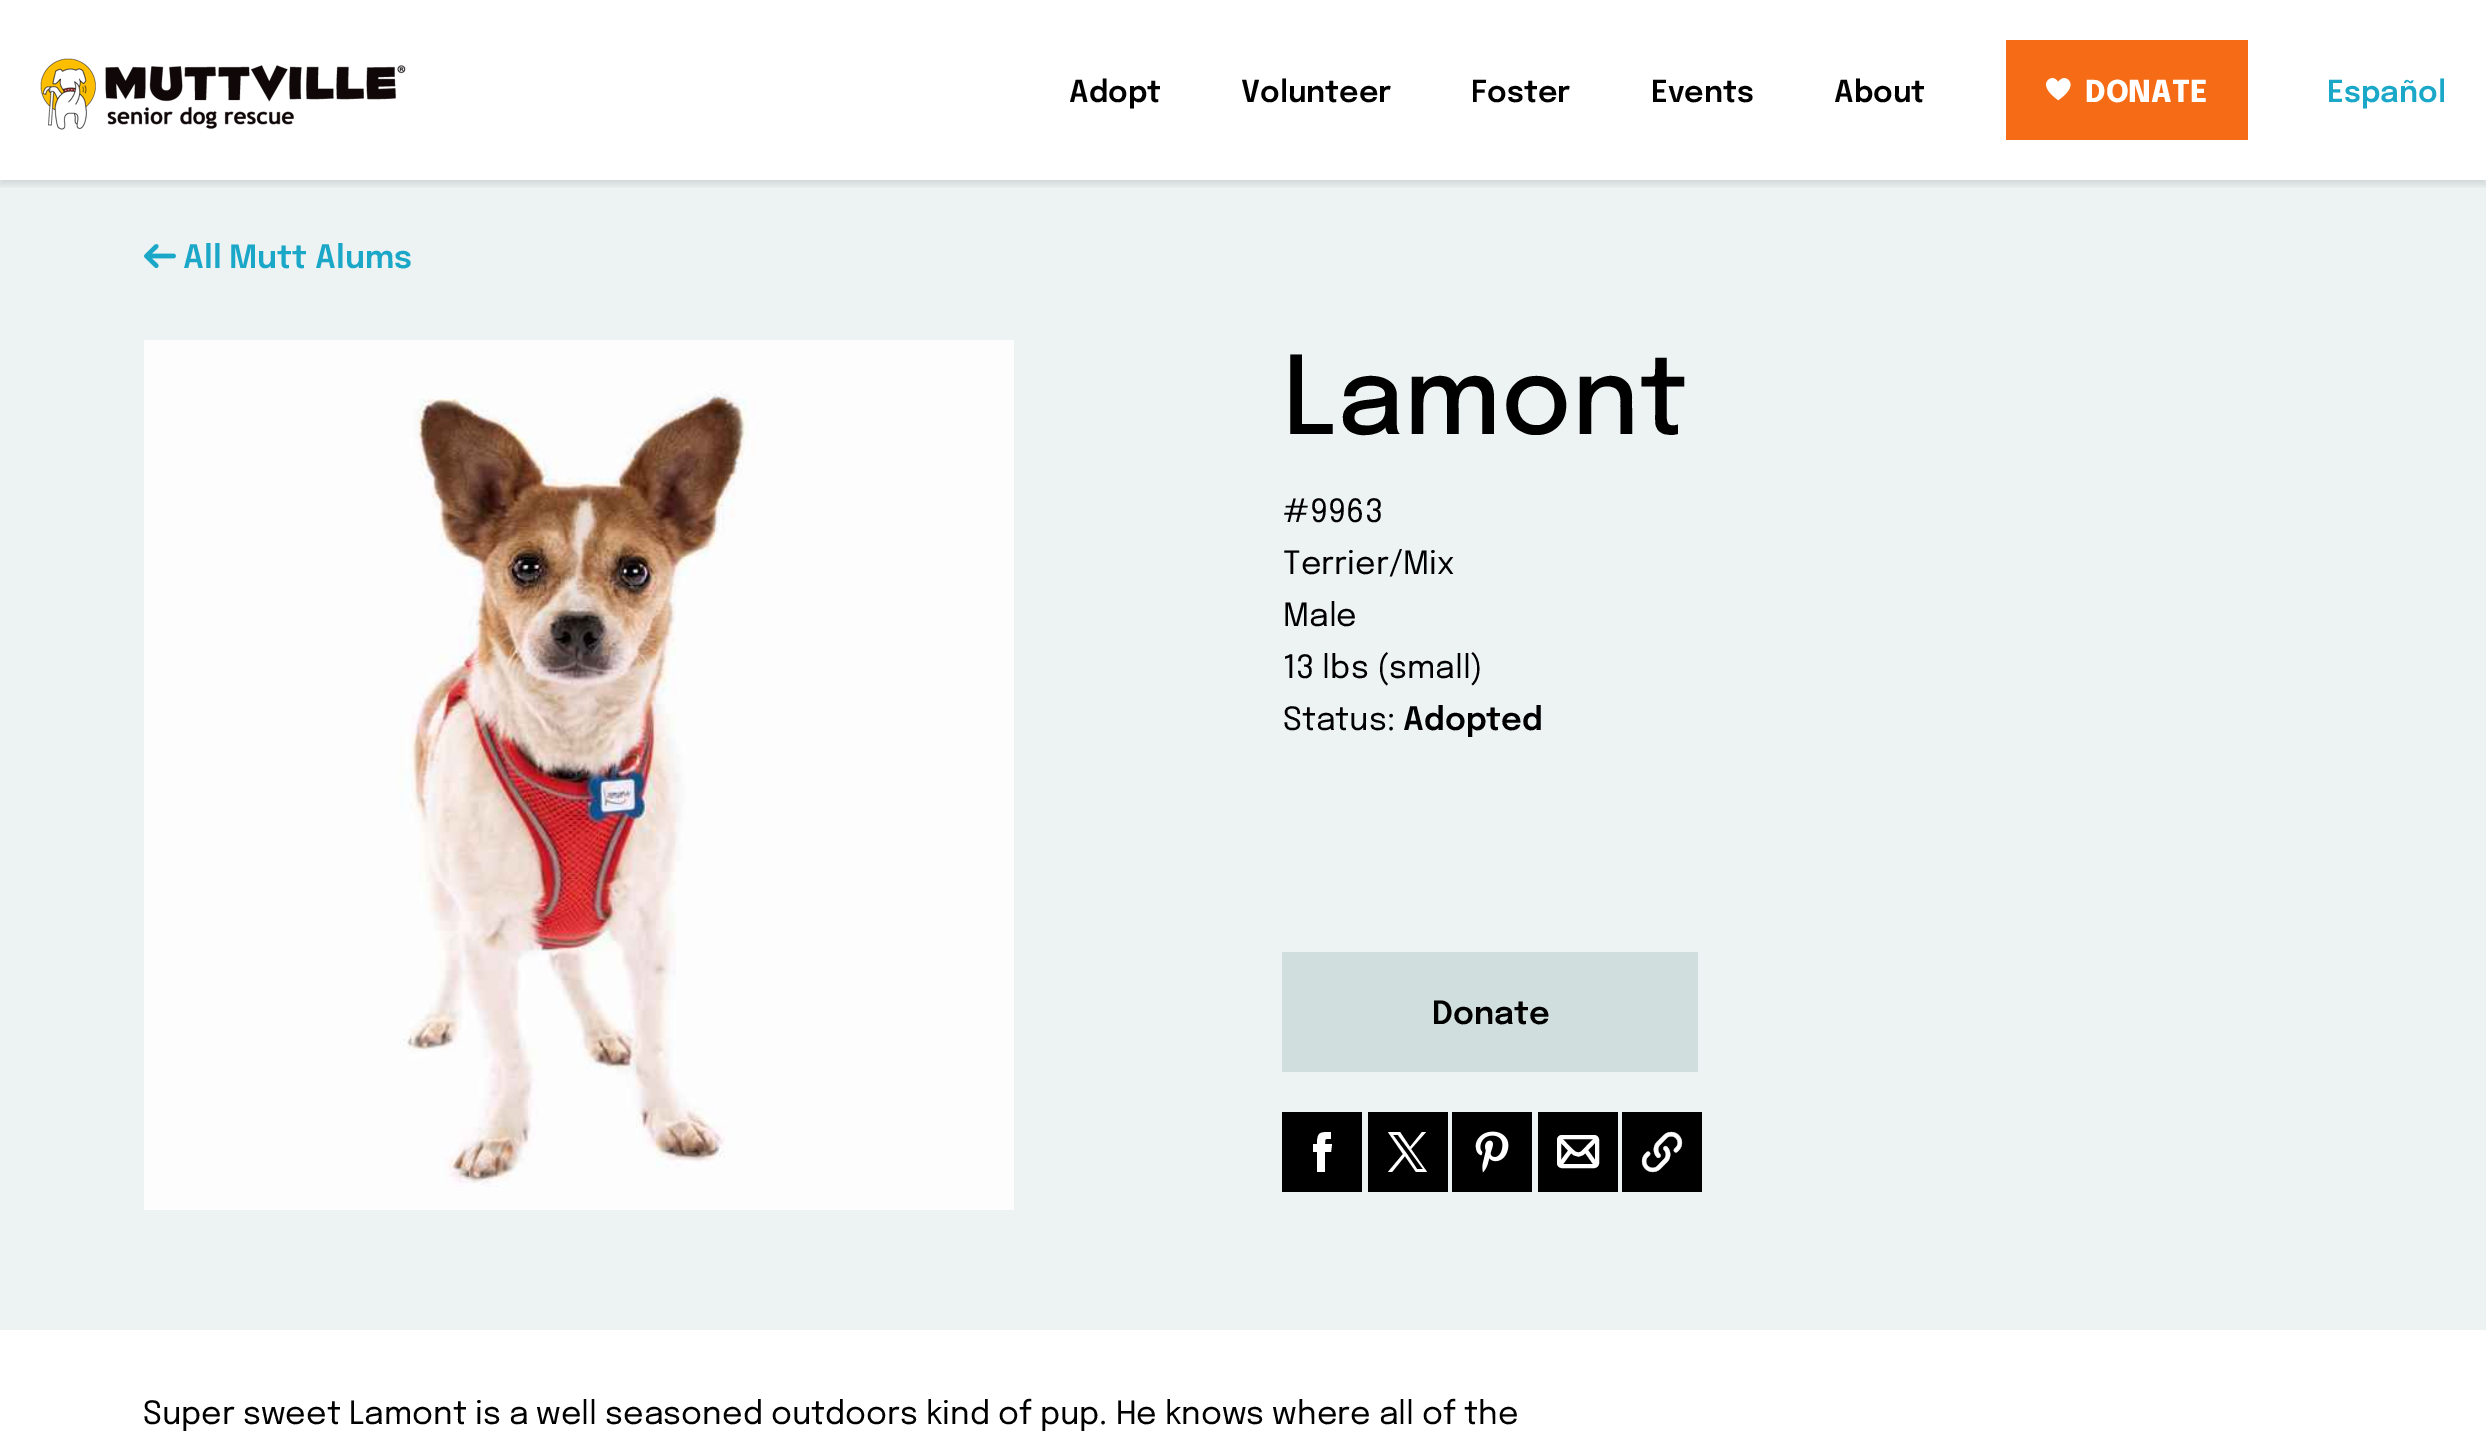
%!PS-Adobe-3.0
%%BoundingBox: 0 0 2486 1454
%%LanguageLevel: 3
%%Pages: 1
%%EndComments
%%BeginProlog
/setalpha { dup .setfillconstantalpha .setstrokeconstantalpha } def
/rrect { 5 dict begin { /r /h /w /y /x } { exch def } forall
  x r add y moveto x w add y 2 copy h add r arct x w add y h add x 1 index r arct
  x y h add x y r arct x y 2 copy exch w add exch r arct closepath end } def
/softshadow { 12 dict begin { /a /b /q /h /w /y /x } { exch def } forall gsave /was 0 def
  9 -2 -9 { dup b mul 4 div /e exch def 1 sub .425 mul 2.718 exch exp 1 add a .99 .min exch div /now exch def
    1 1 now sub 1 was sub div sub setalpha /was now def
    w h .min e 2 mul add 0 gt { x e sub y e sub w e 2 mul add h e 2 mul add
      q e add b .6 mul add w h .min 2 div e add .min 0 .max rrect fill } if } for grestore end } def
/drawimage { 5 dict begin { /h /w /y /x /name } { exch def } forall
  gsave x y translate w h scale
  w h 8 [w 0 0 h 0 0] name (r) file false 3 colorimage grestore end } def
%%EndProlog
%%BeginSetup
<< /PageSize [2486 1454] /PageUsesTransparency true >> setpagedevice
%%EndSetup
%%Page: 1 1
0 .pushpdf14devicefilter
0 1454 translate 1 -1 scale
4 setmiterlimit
1 setgray
0 0 2486 1454 rectfill
0.929 0.949 0.949 setrgbcolor
0 180 2486 1150 rectfill
gsave
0 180 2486 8 rectclip
0 setgray
0 4 2486 180 0 4 0.12 softshadow
grestore
(images/1.raw) 40 58 366 72 drawimage
0.965 0.424 0.086 setrgbcolor
2006 40 242 100 rectfill
(images/2.raw) 2046 78 25 23 drawimage
(images/3.raw) 144 244 32 24 drawimage
(images/4.raw) 144 340 870 870 drawimage
0.82 0.871 0.871 setrgbcolor
1282 952 416 120 rectfill
0 setgray
1282 1112 80 80 rectfill
1 setgray
newpath 1325 1144 moveto 1325 1138 1325 1139 1331 1139 curveto 1331 1132 lineto 1320 1132 1317 1132 1317 1144 curveto 1313 1144 lineto 1313 1152 lineto 1317 1152 lineto 1317 1172 lineto 1325 1172 lineto 1325 1152 lineto 1331 1152 lineto 1332 1144 lineto closepath eofill
0 setgray
1368 1112 80 80 rectfill
1 setgray
newpath 1411 1149 moveto 1426 1132 lineto 1422 1132 lineto 1410 1147 lineto 1400 1132 lineto 1388 1132 lineto 1403 1154 lineto 1388 1172 lineto 1392 1172 lineto 1405 1156 lineto 1416 1172 lineto 1427 1172 lineto closepath 1407 1154 moveto 1393 1135 lineto 1398 1135 lineto 1423 1169 lineto 1417 1169 lineto closepath eofill
(images/5.raw) 1452 1112 80 80 drawimage
0 setgray
1538 1112 80 80 rectfill
1 setgray
4 setlinewidth
1559 1137 38 29 3 rrect stroke
1 setlinejoin
newpath 1597 1138 moveto 1583 1152.5 lineto 1577 1158 1572 1151.5 1568 1147.5 curveto 1559 1138 lineto 1585.5 1150 moveto 1596.5 1165.5 lineto 1571 1150 moveto 1559.5 1165.5 lineto stroke
(images/6.raw) 1622 1112 80 80 drawimage
/Epilogue-SemiBold [30 0 0 -30 0 0] selectfont
0 setgray
1069 102 moveto (Adopt) show
1241 102 moveto (Volunteer) show
1471 102 moveto (Foster) show
1651 102 moveto (Events) show
1834 102 moveto (About) show
/Epilogue-ExtraBold [30 0 0 -30 0 0] selectfont
1 setgray
2085 102 moveto (DONATE) show
/Epilogue-SemiBold [30 0 0 -30 0 0] selectfont
0.102 0.655 0.784 setrgbcolor
2327 102 moveto (Español) show
/Epilogue-SemiBold [32 0 0 -32 0 0] selectfont
183 268 moveto (All Mutt Alums) show
/Epilogue-Medium [108 0 0 -108 0 0] selectfont
0 setgray
1283 434 moveto (Lamont) show
/Epilogue-Regular [32 0 0 -32 0 0] selectfont
1283 522 moveto (#9963) show
1283 574 moveto (Terrier/Mix) show
1283 626 moveto (Male) show
1283 678 moveto (13 lbs \(small\)) show
1283 730 moveto (Status:) show
/Epilogue-SemiBold [32 0 0 -32 0 0] selectfont
1403 730 moveto (Adopted) show
1432 1024 moveto (Donate) show
/Epilogue-Regular [32 0 0 -32 0 0] selectfont
143 1424 moveto (Super sweet Lamont is a well seasoned outdoors kind of pup. He knows where all of the) show
.poppdf14devicefilter showpage
%%EOF
